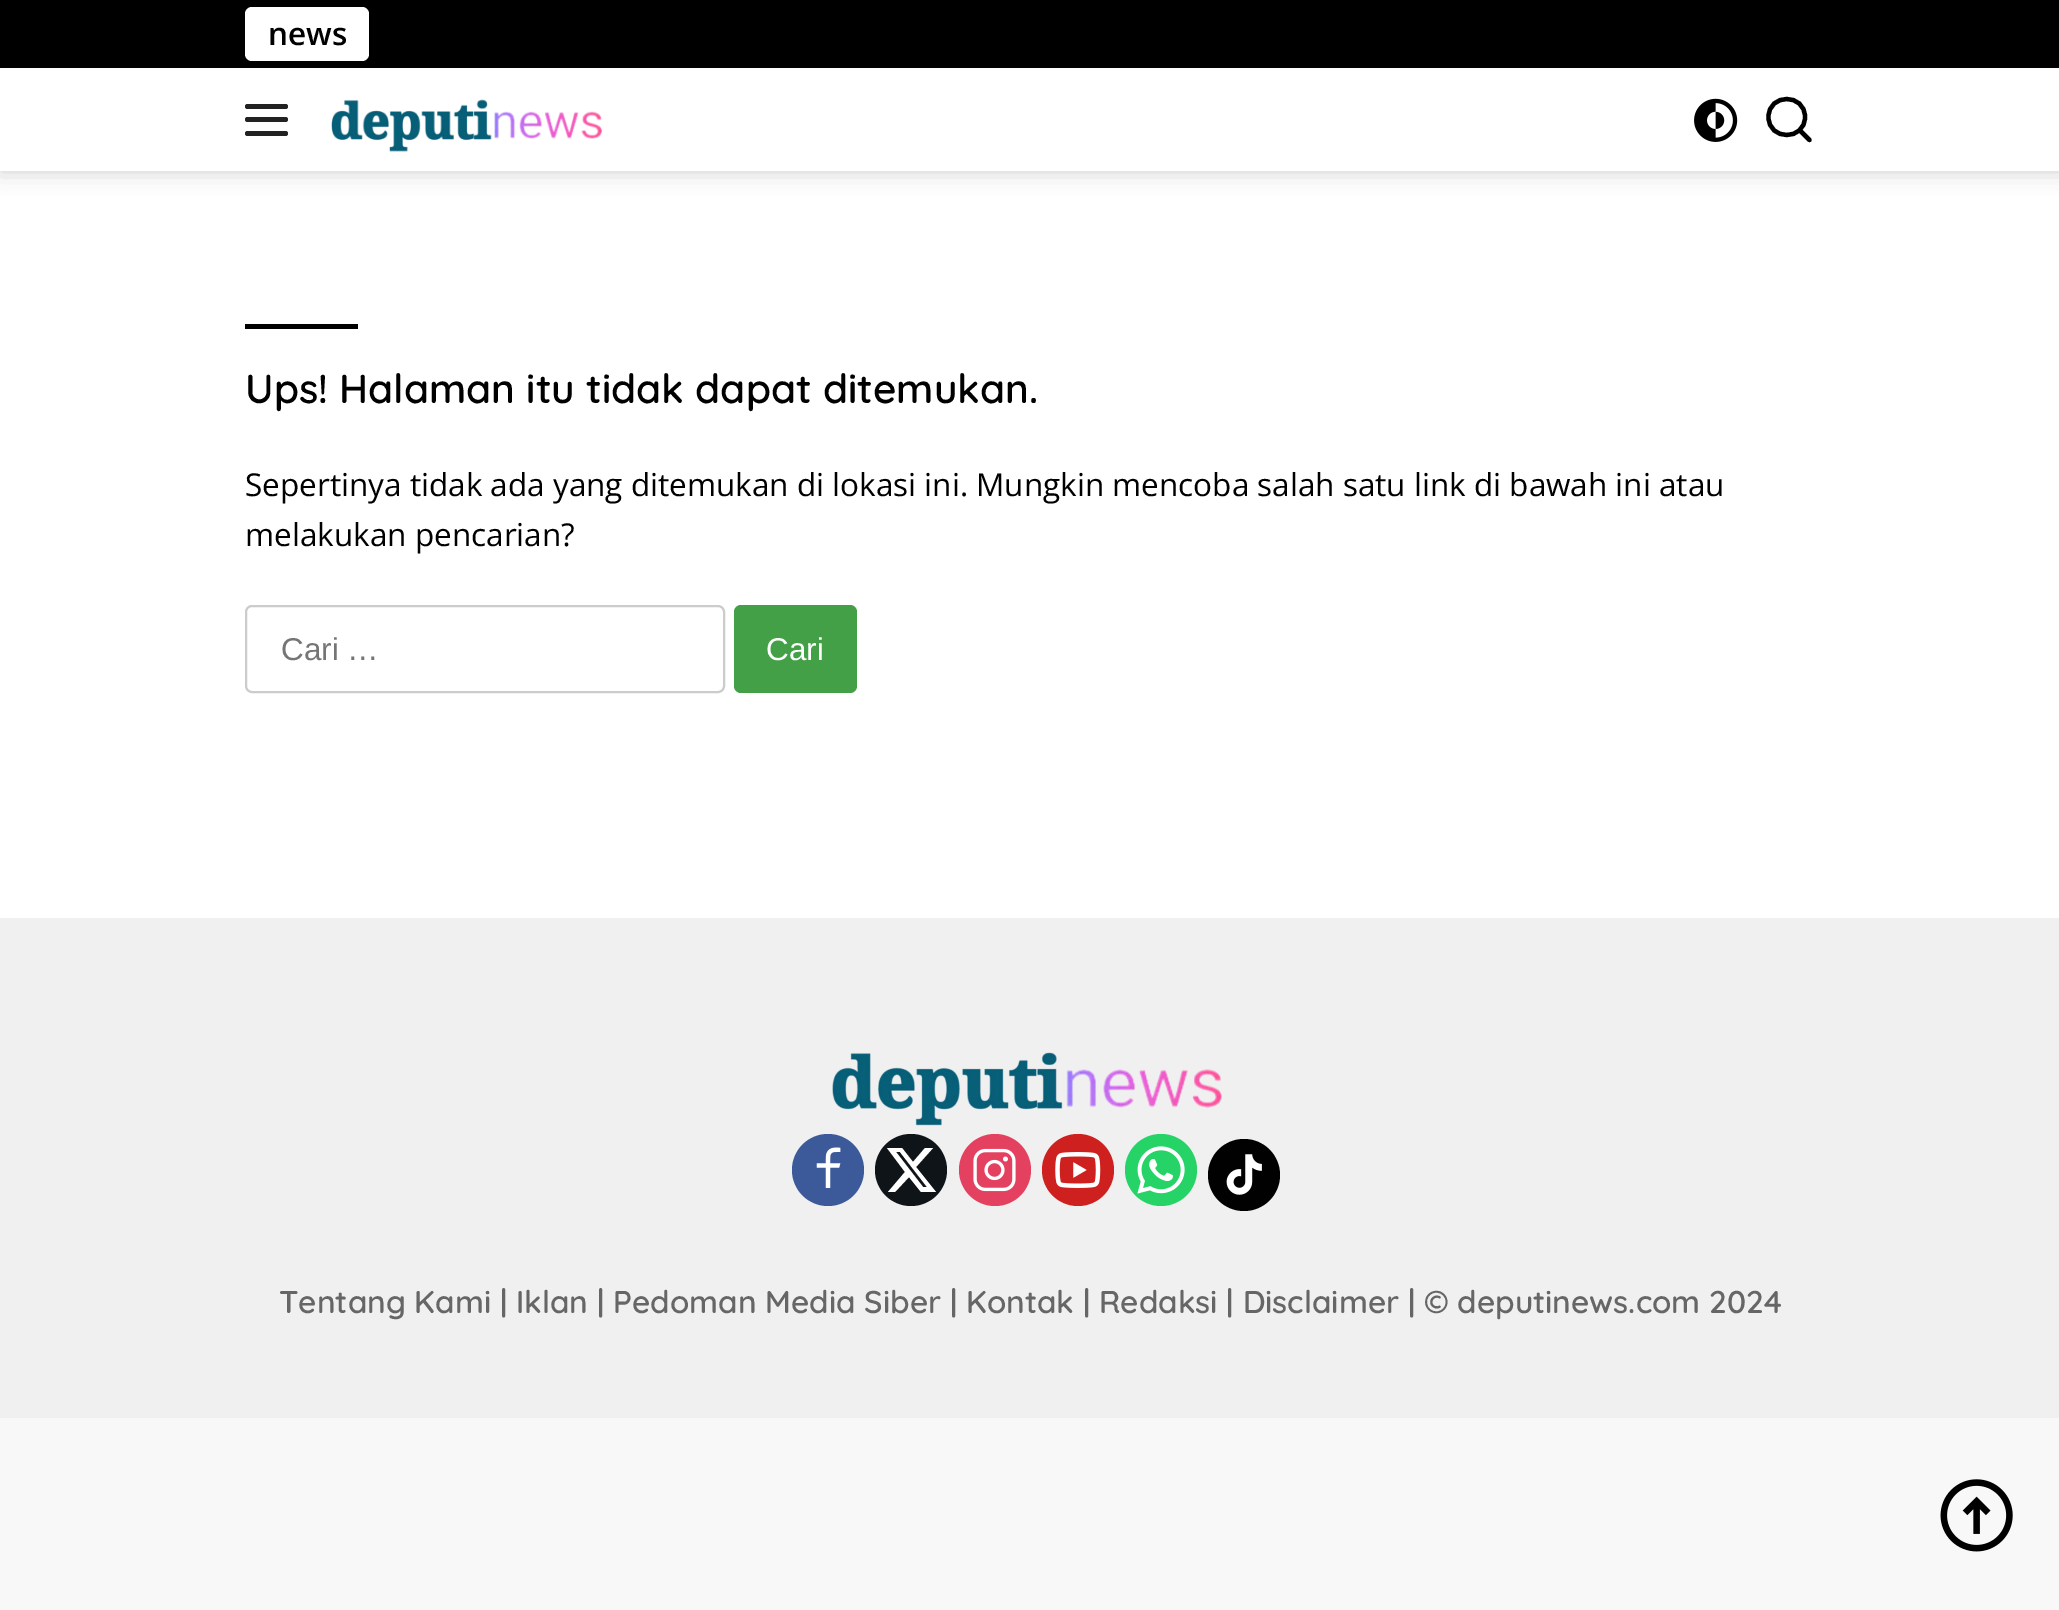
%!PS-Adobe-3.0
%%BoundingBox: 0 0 2059 1610
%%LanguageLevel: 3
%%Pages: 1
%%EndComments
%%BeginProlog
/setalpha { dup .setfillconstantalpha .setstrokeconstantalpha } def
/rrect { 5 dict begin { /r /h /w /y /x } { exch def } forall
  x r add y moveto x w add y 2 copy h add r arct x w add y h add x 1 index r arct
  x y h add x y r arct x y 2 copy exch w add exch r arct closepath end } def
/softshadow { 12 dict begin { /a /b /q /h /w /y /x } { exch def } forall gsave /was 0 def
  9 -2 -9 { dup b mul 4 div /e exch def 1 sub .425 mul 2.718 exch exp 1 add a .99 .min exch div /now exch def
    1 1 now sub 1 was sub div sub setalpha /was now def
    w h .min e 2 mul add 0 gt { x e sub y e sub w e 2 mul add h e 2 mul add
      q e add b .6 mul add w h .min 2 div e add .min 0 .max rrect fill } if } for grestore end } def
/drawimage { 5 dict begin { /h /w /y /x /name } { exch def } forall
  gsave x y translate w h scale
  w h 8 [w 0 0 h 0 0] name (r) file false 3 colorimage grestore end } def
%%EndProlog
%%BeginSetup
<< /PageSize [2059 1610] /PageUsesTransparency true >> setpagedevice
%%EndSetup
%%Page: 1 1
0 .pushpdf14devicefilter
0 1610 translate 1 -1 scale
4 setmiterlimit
0.973 setgray
0 0 2059 1610 rectfill
1 setgray
0 171 2059 747 rectfill
0 setgray
0 0 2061 171 0 11 0.2 softshadow
1 setgray
0 68 2059 103 rectfill
0 setgray
0 0 2059 68 rectfill
1 setgray
245 7 124 54 7 rrect fill
0.133 setgray
245 104 43 5 2.5 rrect fill
245 117 43 5 2.5 rrect fill
245 131 43 5 2.5 rrect fill
(images/1.raw) 331 99 272 53 drawimage
(images/2.raw) 1694 98 44 44 drawimage
0 setgray
4.3 setlinewidth
1 setlinecap
newpath 1809.5 140 moveto 1799.5 130 lineto 1805 117 moveto 1805 141 1768.5 141 1768.5 117 curveto 1768.5 93 1805 93 1805 117 curveto closepath stroke
245 324 113 5 rectfill
0.8 setgray
2 setlinewidth
0 setlinecap
246 606 478 86 6 rrect stroke
0.263 0.627 0.278 setrgbcolor
734 605 123 88 7 rrect fill
0.941 setgray
0 918 2059 500 rectfill
(images/3.raw) 832 1052 390 74 drawimage
0.235 0.353 0.6 setrgbcolor
newpath 828 1170 36 0 360 arc closepath fill
(images/4.raw) 816 1147 25 41 drawimage
0.059 0.078 0.098 setrgbcolor
newpath 911 1170 36 0 360 arc closepath fill
1 setgray
newpath 925 1148 moveto 933 1148 lineto 916 1167 lineto 936 1192 lineto 921 1192 lineto 909 1177 lineto 895 1192 lineto 888 1192 lineto 905 1172 lineto 887 1148 lineto 902 1148 lineto 913 1162 lineto closepath 923 1187 moveto 927 1187 lineto 900 1152 lineto 896 1152 lineto closepath fill
0.894 0.251 0.373 setrgbcolor
newpath 995 1170 36 0 360 arc closepath fill
(images/5.raw) 973 1148 43 44 drawimage
0.804 0.125 0.122 setrgbcolor
newpath 1078 1170 36 0 360 arc closepath fill
(images/6.raw) 1055 1152 46 36 drawimage
0.145 0.827 0.4 setrgbcolor
newpath 1161 1170 36 0 360 arc closepath fill
(images/7.raw) 1137 1146 48 48 drawimage
0.004 setgray
newpath 1244 1175 36 0 360 arc closepath fill
(images/8.raw) 1226 1154 36 41 drawimage
(images/9.raw) 1940 1479 73 73 drawimage
/OpenSans-SemiBold [31.5 0 0 -31.5 0 0] selectfont
0 setgray
268 45 moveto (news) show
/Quicksand-SemiBold [40.5 0 0 -40.5 0 0] selectfont
245 403 moveto (Ups! Halaman itu tidak dapat ditemukan.) show
/OpenSans-Regular [31.5 0 0 -31.5 0 0] selectfont
245 496 moveto (Sepertinya tidak ada yang ditemukan di lokasi ini. Mungkin mencoba salah satu link di bawah ini atau) show
245 546 moveto (melakukan pencarian?) show
/LiberationSans-Regular [31.5 0 0 -31.5 0 0] selectfont
0.459 setgray
281 660 moveto (Cari …) show
1 setgray
766 660 moveto (Cari) show
/Quicksand-SemiBold [31.5 0 0 -31.5 0 0] selectfont
0.4 setgray
279 1313 moveto (Tentang Kami | Iklan | Pedoman Media Siber | Kontak | Redaksi | Disclaimer | © deputinews.com 2024) show
.poppdf14devicefilter showpage
%%EOF
